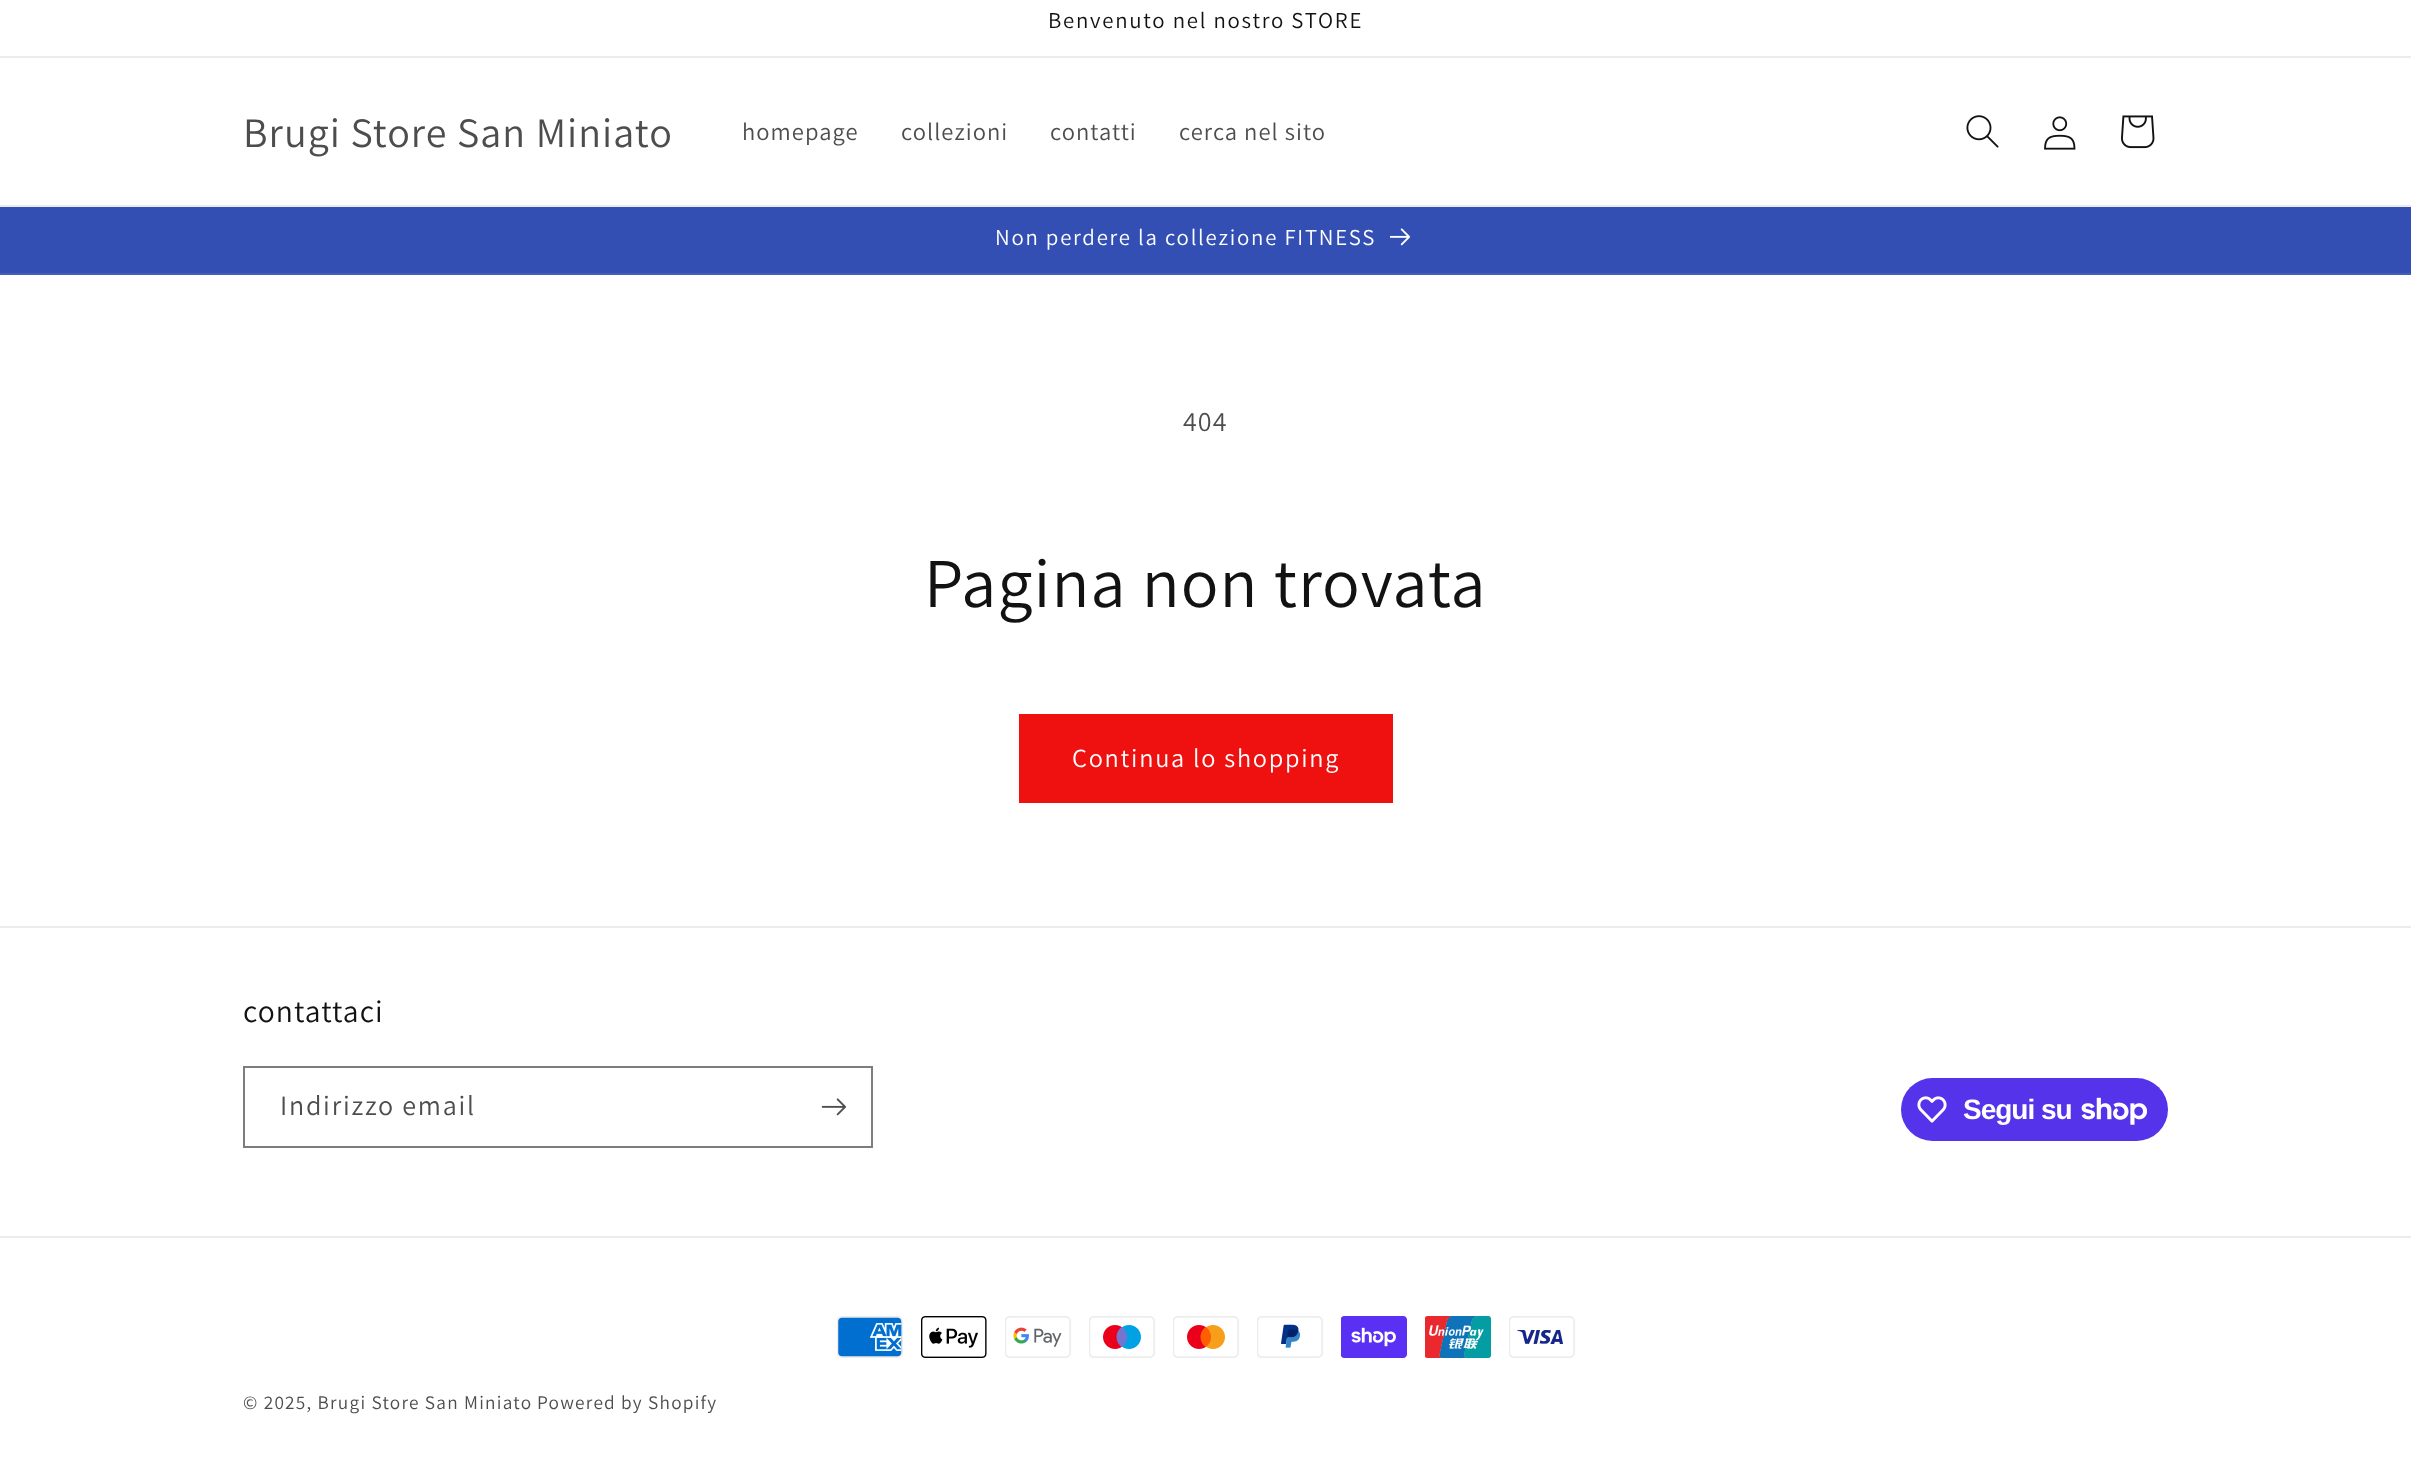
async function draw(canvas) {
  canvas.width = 2411;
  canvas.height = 1458;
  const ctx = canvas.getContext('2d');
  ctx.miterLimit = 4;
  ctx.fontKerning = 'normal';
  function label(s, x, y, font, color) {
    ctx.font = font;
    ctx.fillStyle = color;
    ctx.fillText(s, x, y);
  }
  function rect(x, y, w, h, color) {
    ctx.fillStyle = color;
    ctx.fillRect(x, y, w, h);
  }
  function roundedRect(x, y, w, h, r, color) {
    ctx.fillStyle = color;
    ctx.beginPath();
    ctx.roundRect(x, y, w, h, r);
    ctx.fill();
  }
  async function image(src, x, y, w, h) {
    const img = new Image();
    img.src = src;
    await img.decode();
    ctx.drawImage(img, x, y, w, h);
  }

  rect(0, 0, 2411, 1458, '#fff');
  rect(0, 56, 2411, 2, '#ececec');
  ctx.letterSpacing = '1.75px';
  label('Benvenuto nel nostro STORE', 1048, 28, '22.75px Assistant', '#121212');
  rect(0, 205, 2411, 2, '#ececec');
  ctx.letterSpacing = '1.05px';
  label('Brugi Store San Miniato', 243, 147, '42px Assistant', '#4d4d4d');
  label('homepage', 742, 140, '24.5px Assistant', '#4d4d4d');
  label('collezioni', 901, 140, '24.5px Assistant', '#4d4d4d');
  label('contatti', 1050, 140, '24.5px Assistant', '#4d4d4d');
  label('cerca nel sito', 1179, 140, '24.5px Assistant', '#4d4d4d');
  await image('assets/img1.png', 1966, 115, 33, 33);
  await image('assets/img2.png', 2044, 116, 32, 34);
  await image('assets/img3.png', 2121, 115, 34, 34);
  rect(0, 207, 2411, 66, '#334fb4');
  rect(0, 273, 2411, 2, '#435dba');
  ctx.letterSpacing = '1.75px';
  label('Non perdere la collezione FITNESS', 995, 245, '22.75px Assistant', '#fff');
  await image('assets/img4.png', 1390, 228, 21, 18);
  ctx.letterSpacing = '1.05px';
  label('404', 1183, 431, '28px Assistant', '#4d4d4d');
  label('Pagina non trovata', 924, 607, '70px Assistant', '#121212');
  rect(1019, 714, 374, 89, '#ef1010');
  ctx.letterSpacing = '1.75px';
  label('Continua lo shopping', 1072, 767, '26.25px Assistant', '#fff');
  rect(0, 926, 2411, 2, '#ececec');
  ctx.letterSpacing = '1.05px';
  label('contattaci', 243, 1022, '31.5px Assistant', '#121212');
  ctx.strokeStyle = '#7d7d7d';
  ctx.lineWidth = 2;
  ctx.strokeRect(244, 1067, 628, 80);
  ctx.letterSpacing = '1.75px';
  label('Indirizzo email', 280, 1115, '28px Assistant', '#4d4d4d');
  await image('assets/img5.png', 821, 1098, 25, 18);
  roundedRect(1901, 1078, 267, 63, 31.5, '#5433eb');
  await image('assets/img6.png', 1917, 1096, 30, 27);
  ctx.letterSpacing = '-1px';
  label('Segui su', 1963, 1119, 'bold 28px Liberation Sans', '#fff');
  await image('assets/img7.png', 2081, 1097, 66, 28);
  rect(0, 1236, 2411, 2, '#ececec');
  await image('assets/img8.png', 837, 1316, 66, 42);
  await image('assets/img9.png', 921, 1316, 66, 42);
  await image('assets/img10.png', 1005, 1316, 66, 42);
  await image('assets/img11.png', 1089, 1316, 66, 42);
  await image('assets/img12.png', 1173, 1316, 66, 42);
  await image('assets/img13.png', 1257, 1316, 66, 42);
  await image('assets/img14.png', 1341, 1316, 66, 42);
  await image('assets/img15.png', 1425, 1316, 66, 42);
  await image('assets/img16.png', 1509, 1316, 66, 42);
  ctx.letterSpacing = '1.25px';
  label('© 2025, Brugi Store San Miniato', 243, 1409, '19.25px Assistant', '#4d4d4d');
  label('Powered by Shopify', 537, 1409, '19.25px Assistant', '#4d4d4d');
}

draw(document.querySelector('canvas'));
